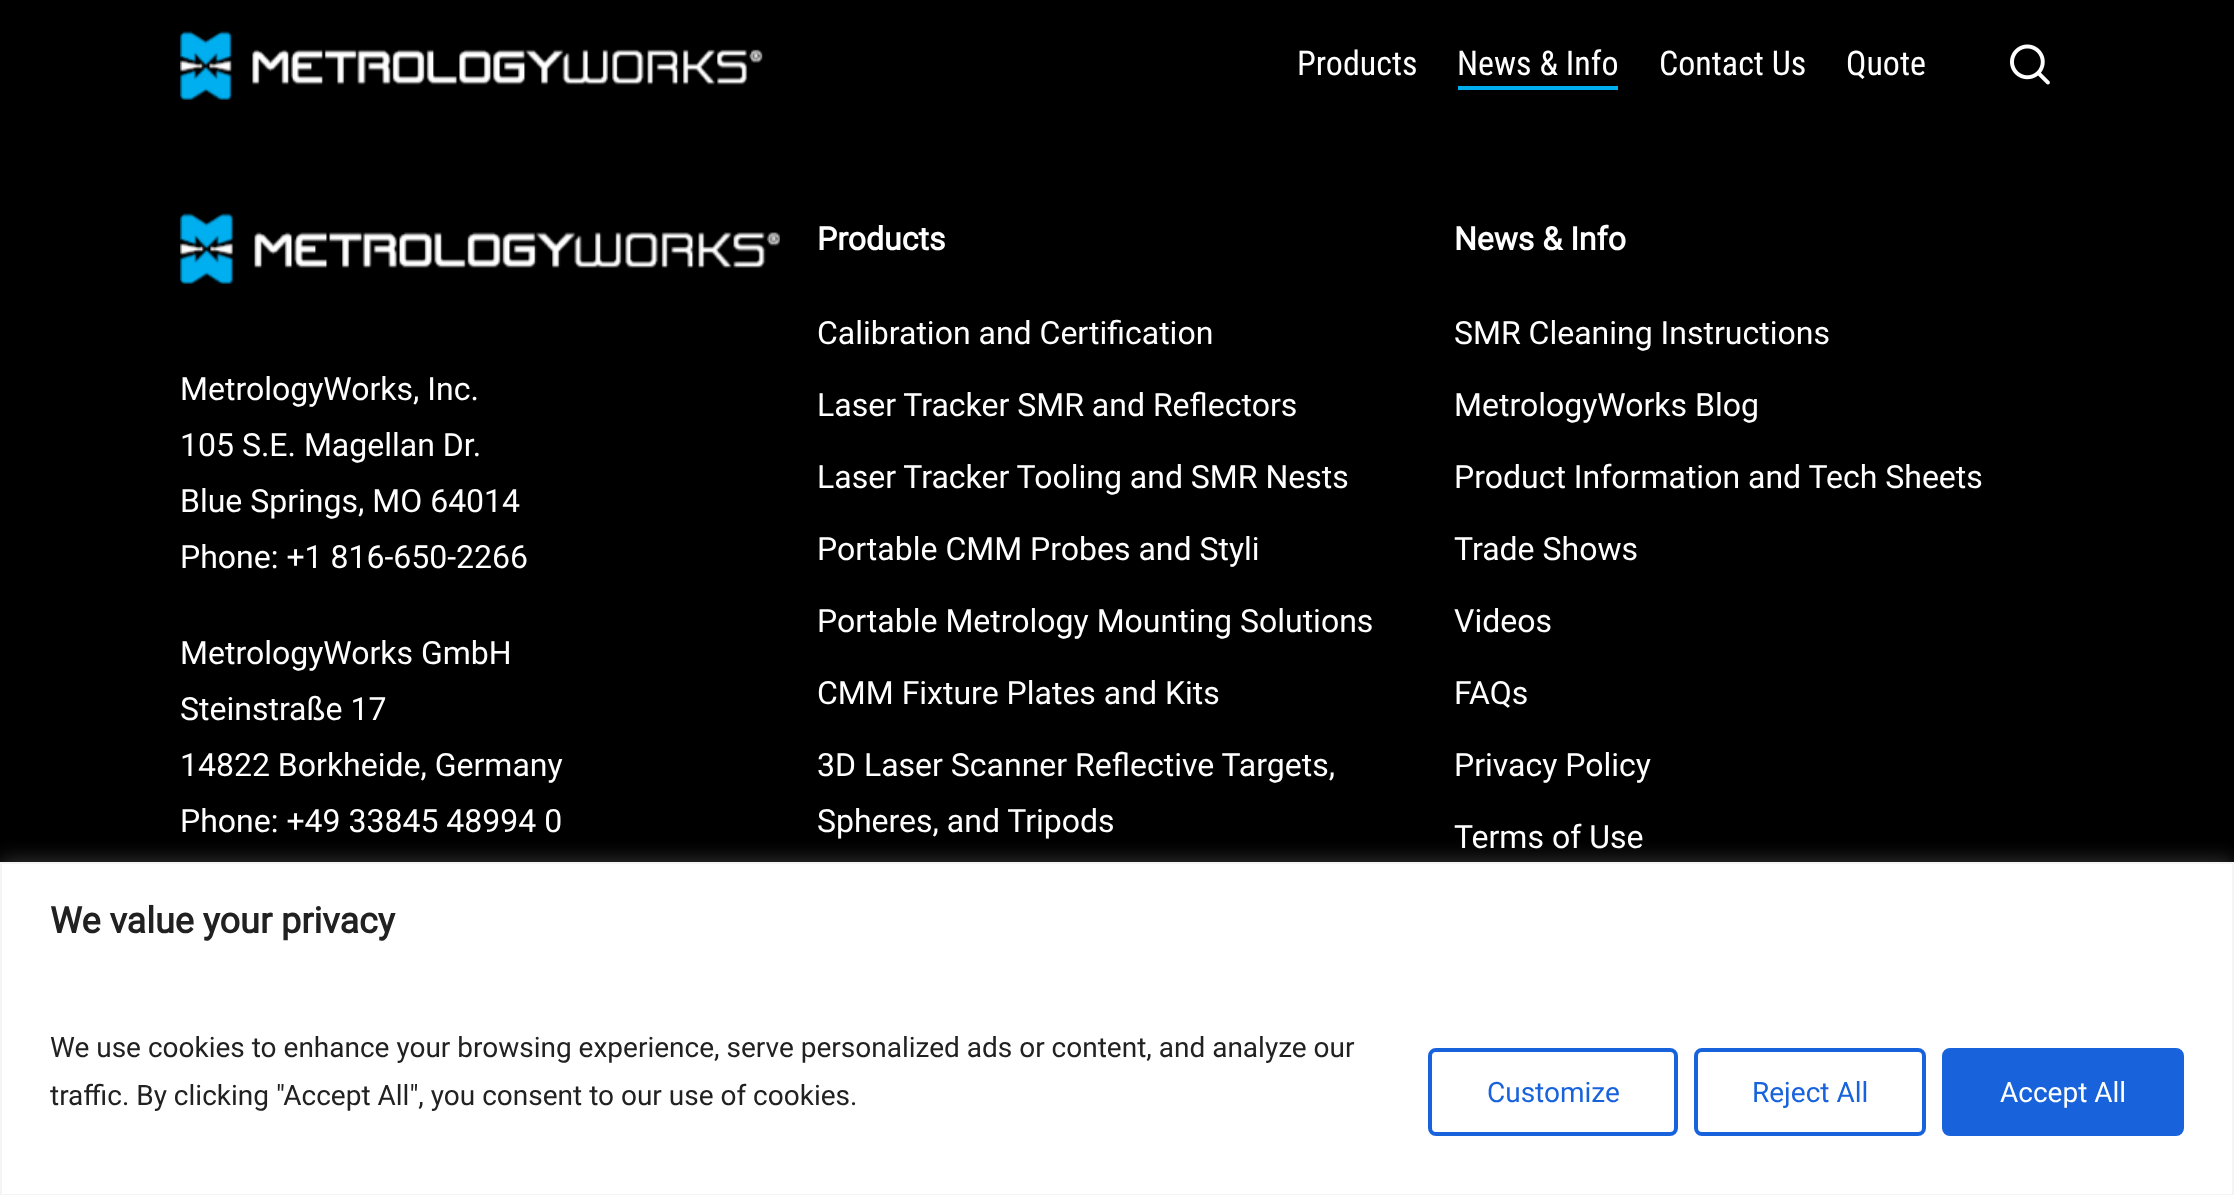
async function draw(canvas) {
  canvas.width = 2234;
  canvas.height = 1195;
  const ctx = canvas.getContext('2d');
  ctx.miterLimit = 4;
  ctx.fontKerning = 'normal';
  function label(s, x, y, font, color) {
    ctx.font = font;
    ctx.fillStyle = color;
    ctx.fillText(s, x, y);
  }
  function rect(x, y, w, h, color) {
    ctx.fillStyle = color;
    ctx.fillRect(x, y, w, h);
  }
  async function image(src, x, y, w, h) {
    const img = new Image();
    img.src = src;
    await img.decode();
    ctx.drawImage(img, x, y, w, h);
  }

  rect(0, 0, 2234, 1195, '#000');
  await image('assets/img1.png', 180, 31, 583, 69);
  label('Products', 1297, 75, '34px Roboto Condensed', '#fff');
  label('News & Info', 1457, 75, '34px Roboto Condensed', '#fff');
  rect(1458, 86, 160, 4, '#00aeef');
  label('Contact Us', 1659, 75, '34px Roboto Condensed', '#fff');
  label('Quote', 1846, 75, '34px Roboto Condensed', '#fff');
  await image('assets/img2.png', 2010, 44, 40, 41);
  await image('assets/img3.png', 180, 213, 600, 71);
  label('MetrologyWorks, Inc.', 180, 400, '32px Roboto', '#fff');
  label('105 S.E. Magellan Dr.', 180, 456, '32px Roboto', '#fff');
  label('Blue Springs, MO 64014', 180, 512, '32px Roboto', '#fff');
  label('Phone: +1 816-650-2266', 180, 568, '32px Roboto', '#fff');
  label('MetrologyWorks GmbH', 180, 664, '32px Roboto', '#fff');
  label('Steinstraße 17', 180, 720, '32px Roboto', '#fff');
  label('14822 Borkheide, Germany', 180, 776, '32px Roboto', '#fff');
  label('Phone: +49 33845 48994 0', 180, 832, '32px Roboto', '#fff');
  label('Products', 817, 250, 'bold 32px Roboto', '#fff');
  label('Calibration and Certification', 817, 344, '32px Roboto', '#fff');
  label('Laser Tracker SMR and Reflectors', 817, 416, '32px Roboto', '#fff');
  label('Laser Tracker Tooling and SMR Nests', 817, 488, '32px Roboto', '#fff');
  label('Portable CMM Probes and Styli', 817, 560, '32px Roboto', '#fff');
  label('Portable Metrology Mounting Solutions', 817, 632, '32px Roboto', '#fff');
  label('CMM Fixture Plates and Kits', 817, 704, '32px Roboto', '#fff');
  label('3D Laser Scanner Reflective Targets,', 817, 776, '32px Roboto', '#fff');
  label('Spheres, and Tripods', 817, 832, '32px Roboto', '#fff');
  label('News & Info', 1454, 250, 'bold 32px Roboto', '#fff');
  label('SMR Cleaning Instructions', 1454, 344, '32px Roboto', '#fff');
  label('MetrologyWorks Blog', 1454, 416, '32px Roboto', '#fff');
  label('Product Information and Tech Sheets', 1454, 488, '32px Roboto', '#fff');
  label('Trade Shows', 1454, 560, '32px Roboto', '#fff');
  label('Videos', 1454, 632, '32px Roboto', '#fff');
  label('FAQs', 1454, 704, '32px Roboto', '#fff');
  label('Privacy Policy', 1454, 776, '32px Roboto', '#fff');
  label('Terms of Use', 1454, 848, '32px Roboto', '#fff');
  ctx.fillStyle = '#acabab4d';
  ctx.filter = 'blur(10px)';
  ctx.beginPath();
  ctx.rect(0, 860, 2234, 334);
  ctx.fill();
  ctx.filter = 'none';
  ctx.fillStyle = '#fff';
  ctx.beginPath();
  ctx.rect(1, 863, 2232, 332);
  ctx.fill();
  ctx.strokeStyle = '#f4f4f4';
  ctx.lineWidth = 2;
  ctx.stroke();
  label('We value your privacy', 50, 933, 'bold 36px Roboto', '#212121');
  label('We use cookies to enhance your browsing experience, serve personalized ads or content, and analyze our', 50, 1057, '28px Roboto', '#212121');
  label('traffic. By clicking "Accept All", you consent to our use of cookies.', 50, 1105, '28px Roboto', '#212121');
  ctx.beginPath();
  ctx.roundRect(1430, 1050, 246, 84, 6);
  ctx.strokeStyle = '#1863dc';
  ctx.lineWidth = 4;
  ctx.stroke();
  label('Customize', 1487, 1102, '28px Roboto', '#1863dc');
  ctx.beginPath();
  ctx.roundRect(1696, 1050, 228, 84, 6);
  ctx.stroke();
  label('Reject All', 1752, 1102, '28px Roboto', '#1863dc');
  ctx.beginPath();
  ctx.roundRect(1944, 1050, 238, 84, 6);
  ctx.fill();
  ctx.stroke();
  label('Accept All', 2000, 1102, '28px Roboto', '#fff');
}

draw(document.querySelector('canvas'));
